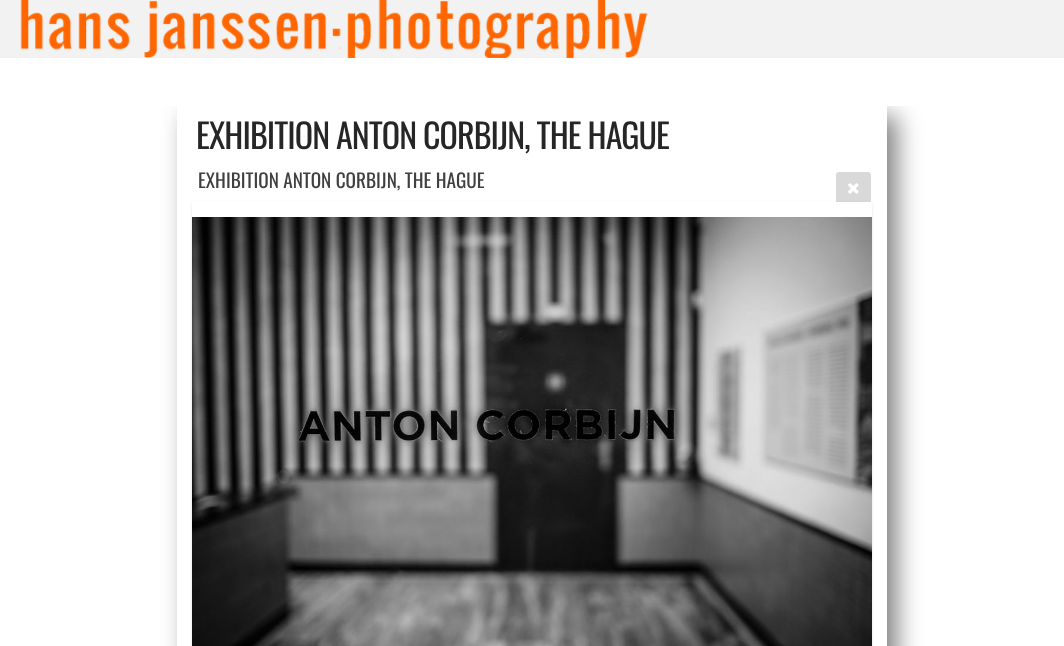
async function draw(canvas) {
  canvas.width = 1064;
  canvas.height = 646;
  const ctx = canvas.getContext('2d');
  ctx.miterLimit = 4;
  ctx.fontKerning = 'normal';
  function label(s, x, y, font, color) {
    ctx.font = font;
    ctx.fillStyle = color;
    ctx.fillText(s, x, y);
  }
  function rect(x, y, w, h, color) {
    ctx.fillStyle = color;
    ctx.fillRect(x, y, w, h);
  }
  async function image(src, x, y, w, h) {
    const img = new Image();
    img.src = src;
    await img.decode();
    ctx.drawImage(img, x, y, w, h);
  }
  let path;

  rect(0, 0, 1064, 646, '#fff');
  rect(0, 0, 1064, 58, '#f2f2f2');
  await image('assets/img1.png', 20, 0, 628, 58);
  ctx.save();
  ctx.beginPath();
  ctx.rect(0, 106, 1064, 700);
  ctx.clip();
  path = new Path2D('M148 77H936V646H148ZM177 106H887V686H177Z');
  ctx.clip(path, 'evenodd');
  ctx.fillStyle = '#808080';
  ctx.filter = 'blur(12.5px)';
  ctx.beginPath();
  ctx.rect(187, 116, 710, 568);
  ctx.fill();
  ctx.filter = 'none';
  ctx.restore();
  ctx.letterSpacing = '-0.95px';
  label('EXHIBITION ANTON CORBIJN, THE HAGUE', 196, 149, '34px Oswald', '#262626');
  ctx.letterSpacing = '0px';
  label('EXHIBITION ANTON CORBIJN, THE HAGUE', 198, 188, '19.25px Oswald', '#404040');
  ctx.fillStyle = '#d9d9d9';
  ctx.beginPath();
  ctx.roundRect(836, 172, 35, 31, [3, 3, 0, 0]);
  ctx.fill();
  await image('assets/img2.png', 848, 183, 11, 11);
  ctx.fillStyle = '#0000001a';
  ctx.filter = 'blur(1.5px)';
  ctx.beginPath();
  ctx.rect(192, 203, 680, 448);
  ctx.fill();
  ctx.filter = 'none';
  rect(192, 202, 680, 15, '#fff');
  await image('assets/img3.png', 192, 217, 680, 429);
}

draw(document.querySelector('canvas'));
